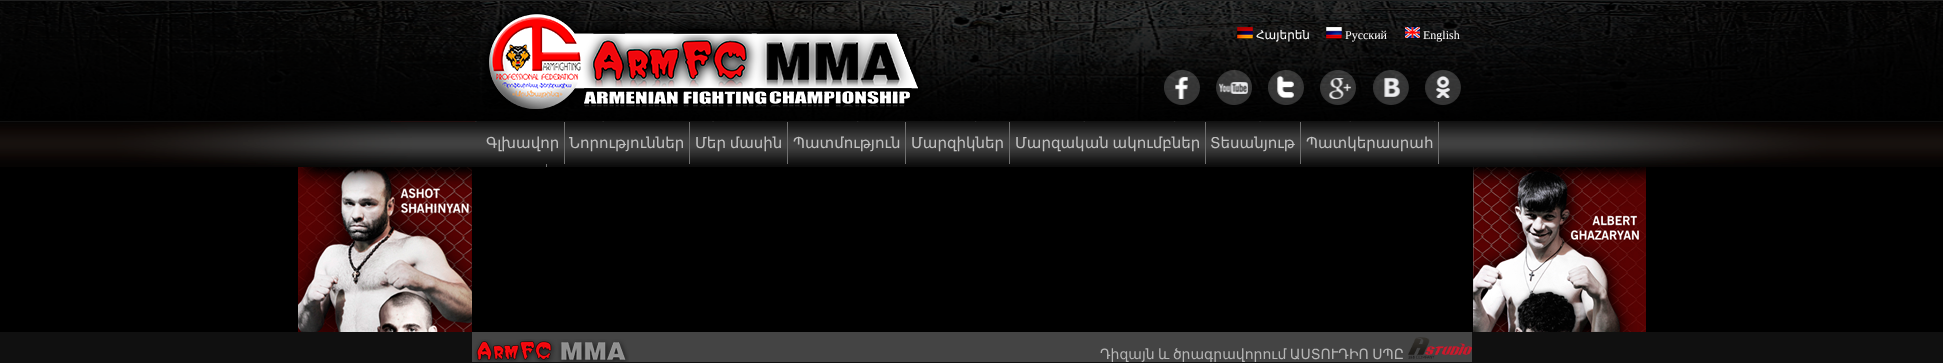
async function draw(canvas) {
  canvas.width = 1943;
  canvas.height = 363;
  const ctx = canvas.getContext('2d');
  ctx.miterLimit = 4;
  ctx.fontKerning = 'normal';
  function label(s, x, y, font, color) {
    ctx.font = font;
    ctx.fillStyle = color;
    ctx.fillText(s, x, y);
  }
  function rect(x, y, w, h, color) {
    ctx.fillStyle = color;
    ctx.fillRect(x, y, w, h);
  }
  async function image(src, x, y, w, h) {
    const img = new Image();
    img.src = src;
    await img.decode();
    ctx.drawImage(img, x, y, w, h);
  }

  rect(0, 0, 1943, 363, '#000');
  await image('assets/img1.png', 0, 0, 1943, 122);
  await image('assets/img2.png', 482, 5, 438, 104);
  await image('assets/img3.png', 1237, 27, 16, 12);
  label('Հայերեն', 1256, 39, '12px DejaVu Sans', '#fff');
  await image('assets/img4.png', 1326, 27, 16, 12);
  label('Русский', 1345, 39, '12px Liberation Serif', '#fff');
  await image('assets/img5.png', 1404, 27, 16, 12);
  label('English', 1423, 39, '12px Liberation Serif', '#fff');
  await image('assets/img6.png', 1164, 70, 36, 35);
  await image('assets/img7.png', 1216, 70, 36, 35);
  await image('assets/img8.png', 1268, 70, 36, 35);
  await image('assets/img9.png', 1320, 70, 36, 35);
  await image('assets/img10.png', 1373, 70, 36, 35);
  await image('assets/img11.png', 1425, 70, 36, 35);
  await image('assets/img12.png', 0, 122, 1943, 45);
  rect(564, 122, 1, 42, '#6f6f6f');
  label('Գլխավոր', 486, 148, '15px DejaVu Sans', '#c0c0c0');
  rect(689, 122, 1, 42, '#6f6f6f');
  label('Նորություններ', 569, 148, '15px DejaVu Sans', '#c0c0c0');
  rect(787, 122, 1, 42, '#6f6f6f');
  ctx.wordSpacing = '-1px';
  label('Մեր մասին', 695, 148, '15px DejaVu Sans', '#c0c0c0');
  rect(905, 122, 1, 42, '#6f6f6f');
  ctx.wordSpacing = '0px';
  label('Պատմություն', 793, 148, '15px DejaVu Sans', '#c0c0c0');
  rect(1009, 122, 1, 42, '#6f6f6f');
  label('Մարզիկներ', 911, 148, '15px DejaVu Sans', '#c0c0c0');
  rect(1205, 122, 1, 42, '#6f6f6f');
  ctx.wordSpacing = '-1px';
  label('Մարզական ակումբներ', 1015, 148, '15px DejaVu Sans', '#c0c0c0');
  rect(1300, 122, 1, 42, '#6f6f6f');
  ctx.wordSpacing = '0px';
  label('Տեսանյութ', 1210, 148, '15px DejaVu Sans', '#c0c0c0');
  rect(1438, 122, 1, 42, '#6f6f6f');
  label('Պատկերասրահ', 1306, 148, '15px DejaVu Sans', '#c0c0c0');
  rect(546, 164, 1, 3, '#6f6f6f');
  await image('assets/img13.png', 298, 167, 1348, 165);
  rect(472, 167, 1, 165, '#000');
  rect(0, 332, 1943, 31, '#101010');
  rect(472, 332, 1000, 30, '#444');
  await image('assets/img14.png', 474, 339, 155, 23);
  ctx.wordSpacing = '-1px';
  label('Դիզայն և ծրագրավորում ԱՍՏՈՒԴԻՈ ՍՊԸ', 1100, 359, '14px DejaVu Sans', '#b6b6b6');
  await image('assets/img15.png', 1408, 337, 64, 22);
}

draw(document.querySelector('canvas'));
